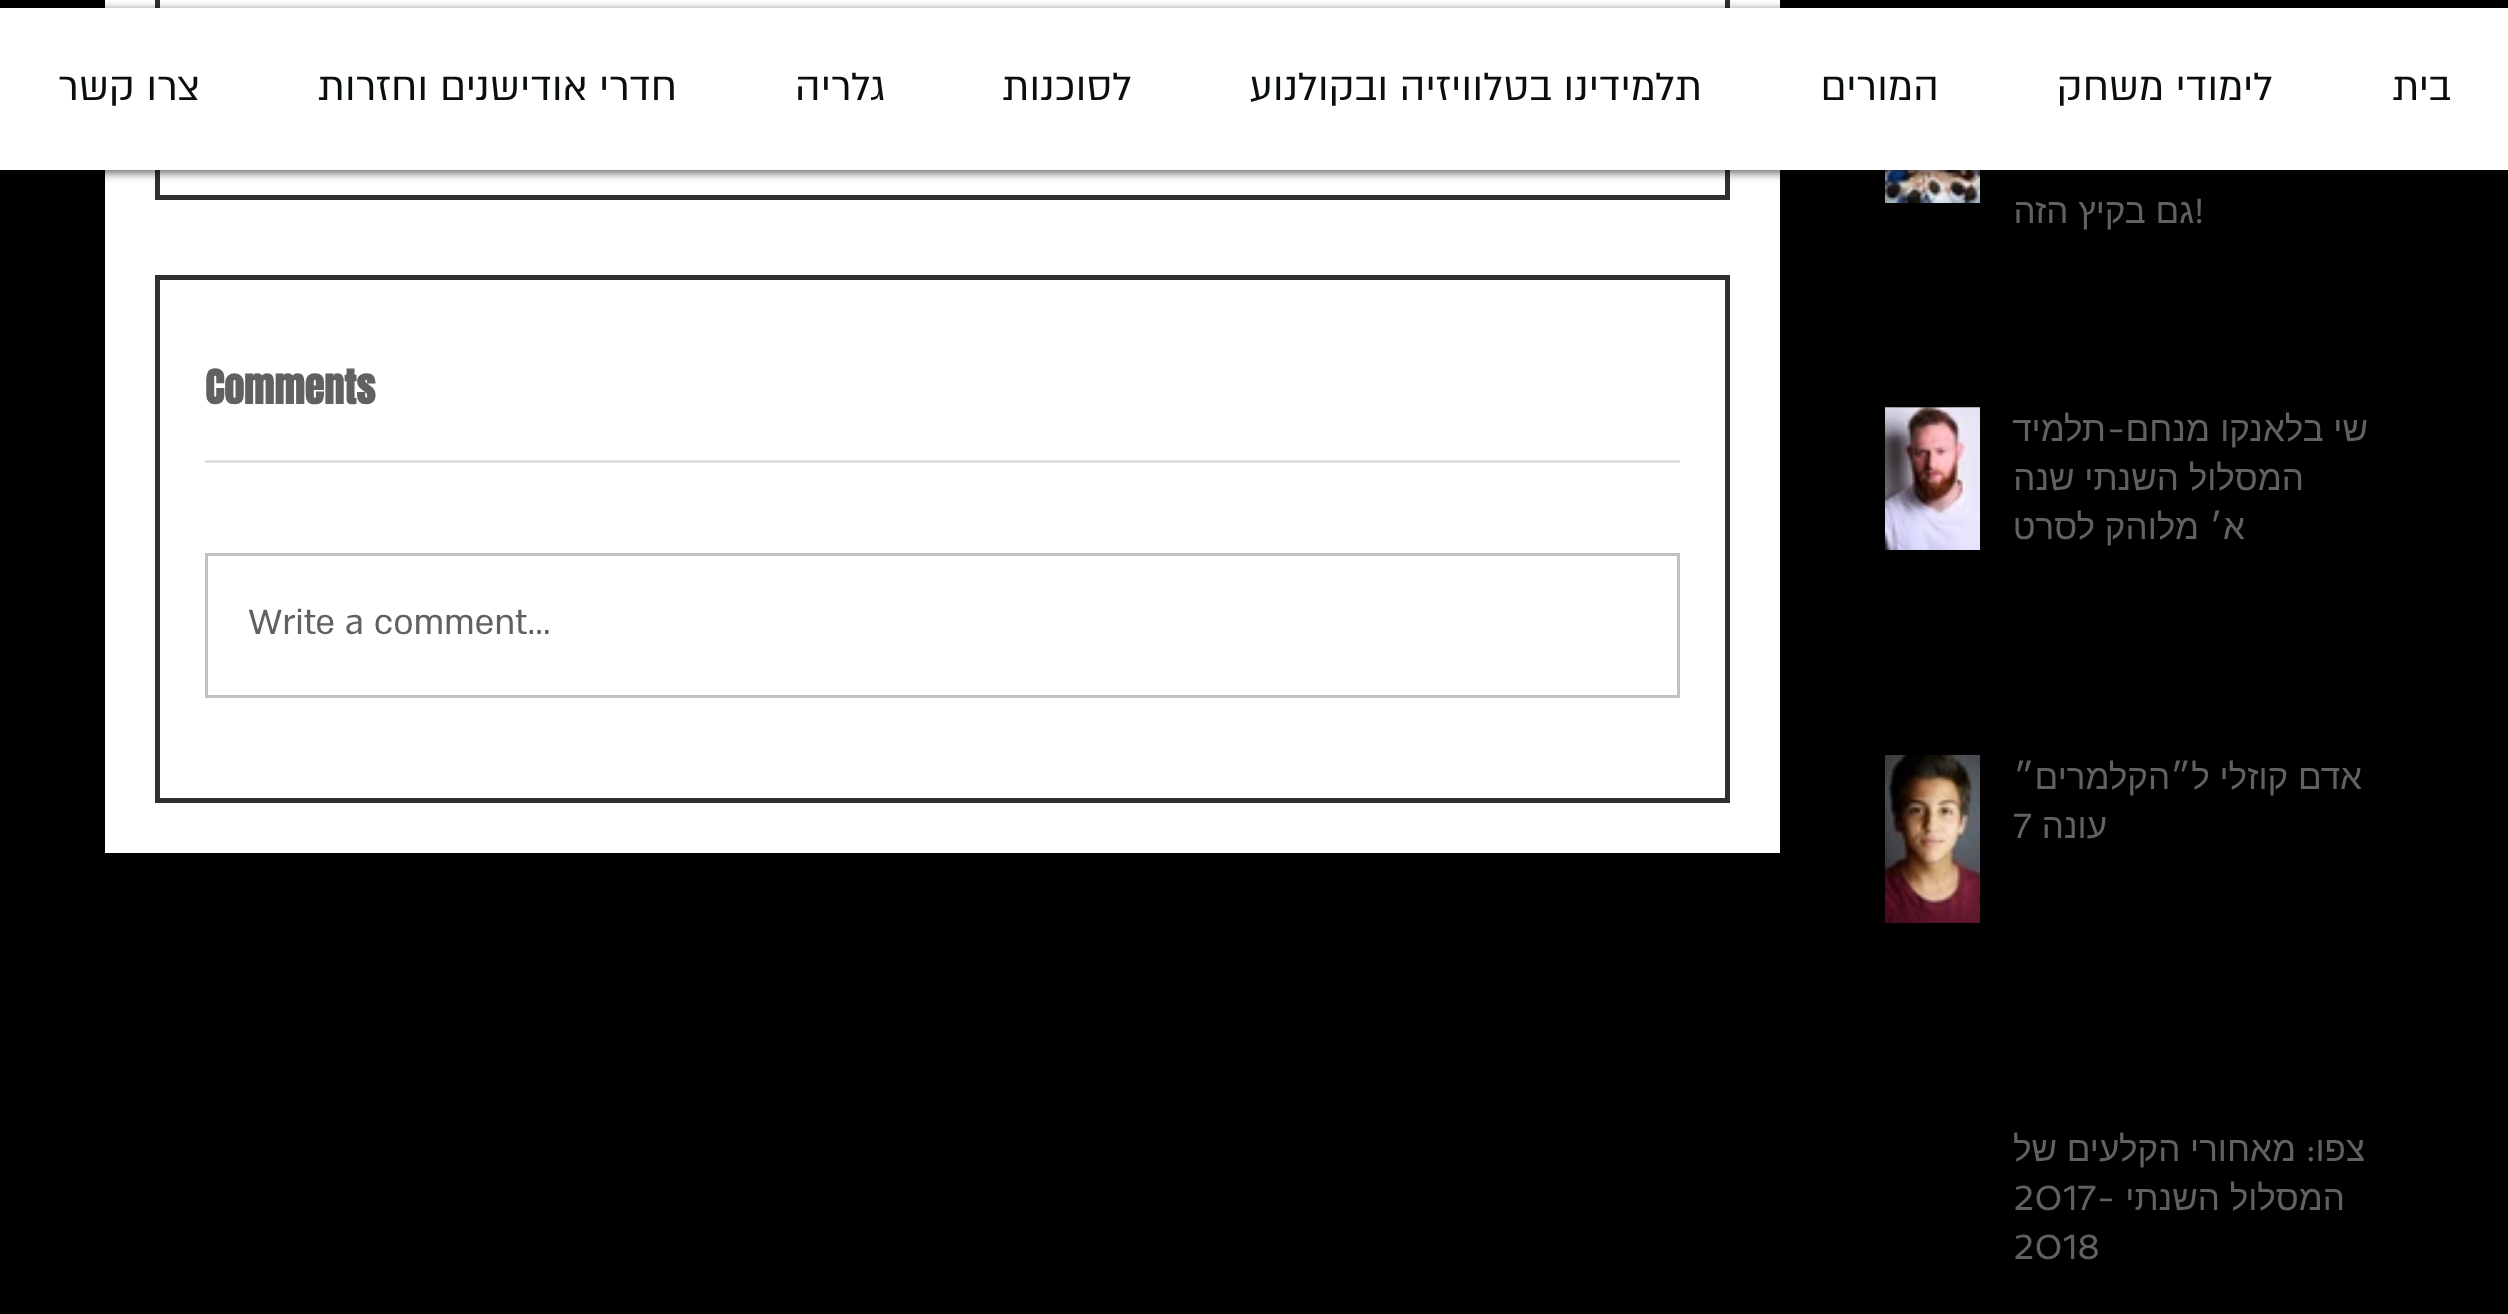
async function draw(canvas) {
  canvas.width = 2508;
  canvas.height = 1314;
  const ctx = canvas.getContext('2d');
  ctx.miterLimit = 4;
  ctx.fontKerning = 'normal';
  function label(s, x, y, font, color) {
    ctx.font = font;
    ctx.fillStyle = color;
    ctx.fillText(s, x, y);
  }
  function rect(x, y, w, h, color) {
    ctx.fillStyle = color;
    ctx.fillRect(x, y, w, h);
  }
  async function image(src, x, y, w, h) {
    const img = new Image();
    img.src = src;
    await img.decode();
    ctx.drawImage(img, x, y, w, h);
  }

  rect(0, 0, 2508, 1314, '#000');
  await image('assets/img1.png', 1885, 170, 95, 33);
  rect(105, 0, 1675, 853, '#fff');
  ctx.strokeStyle = '#303030';
  ctx.lineWidth = 5;
  ctx.strokeRect(157.5, -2.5, 1570, 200);
  ctx.fillStyle = '#00000099';
  ctx.filter = 'blur(5px)';
  ctx.beginPath();
  ctx.rect(0, 10, 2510, 163);
  ctx.fill();
  ctx.filter = 'none';
  rect(0, 8, 2508, 162, '#fff');
  ctx.direction = 'rtl';
  label('בית', 2451, 100, '45px "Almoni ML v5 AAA"', '#090f0a');
  label('לימודי משחק', 2273, 100, '45px "Almoni ML v5 AAA"', '#090f0a');
  label('המורים', 1939, 100, '45px "Almoni ML v5 AAA"', '#090f0a');
  label('תלמידינו בטלוויזיה ובקולנוע', 1702, 100, '45px "Almoni ML v5 AAA"', '#090f0a');
  label('לסוכנות', 1132, 100, '45px "Almoni ML v5 AAA"', '#090f0a');
  label('גלריה', 885, 100, '45px "Almoni ML v5 AAA"', '#090f0a');
  label('חדרי אודישנים וחזרות', 677, 100, '45px "Almoni ML v5 AAA"', '#090f0a');
  label('צרו קשר', 200, 100, '45px "Almoni ML v5 AAA"', '#090f0a');
  ctx.direction = 'ltr';
  label('!', 2194, 223, '35px Spinnaker', '#616161');
  ctx.direction = 'rtl';
  label('גם בקיץ הזה', 2194, 223, '35px Liberation Sans', '#616161');
  label('שי בלאנקו', 2368, 441, '35px Liberation Sans', '#616161');
  label('מנחם', 2210, 441, '35px Liberation Sans', '#616161');
  label('-', 2126, 441, '35px Spinnaker', '#616161');
  label('תלמיד', 2106, 441, '35px Liberation Sans', '#616161');
  label('המסלול השנתי שנה', 2304, 490, '35px Liberation Sans', '#616161');
  label('א׳', 2245, 539, '35px Liberation Sans', '#616161');
  label('מלוהק לסרט', 2199, 539, '35px Liberation Sans', '#616161');
  await image('assets/img2.png', 1885, 407, 95, 1);
  await image('assets/img3.png', 1885, 407, 95, 143);
  label('אדם קוזלי ל״הקלמרים״', 2362, 789, '35px Liberation Sans', '#616161');
  label('עונה', 2107, 838, '35px Liberation Sans', '#616161');
  ctx.direction = 'ltr';
  label('7', 2013, 838, '35px Spinnaker', '#616161');
  await image('assets/img4.png', 1885, 755, 95, 168);
  ctx.direction = 'rtl';
  label('צפו', 2365, 1161, '35px Liberation Sans', '#616161');
  label(':', 2315, 1161, '35px Spinnaker', '#616161');
  label('מאחורי הקלעים של', 2296, 1161, '35px Liberation Sans', '#616161');
  label('המסלול השנתי', 2345, 1210, '35px Liberation Sans', '#616161');
  ctx.direction = 'ltr';
  label('2017-', 2013, 1210, '35px Spinnaker', '#616161');
  label('2018', 2013, 1259, '35px Spinnaker', '#616161');
  ctx.strokeRect(157.5, 277.5, 1570, 523);
  label('Comments', 205, 404, 'bold 40px Anton', '#616161');
  rect(205, 460, 1475, 3, '#dfdfdf');
  ctx.strokeStyle = '#c1c1c1';
  ctx.lineWidth = 3;
  ctx.strokeRect(206.5, 554.5, 1472, 142);
  label('Write a comment...', 248, 634, '40px "Almoni ML v5 AAA"', '#616161');
}

draw(document.querySelector('canvas'));
